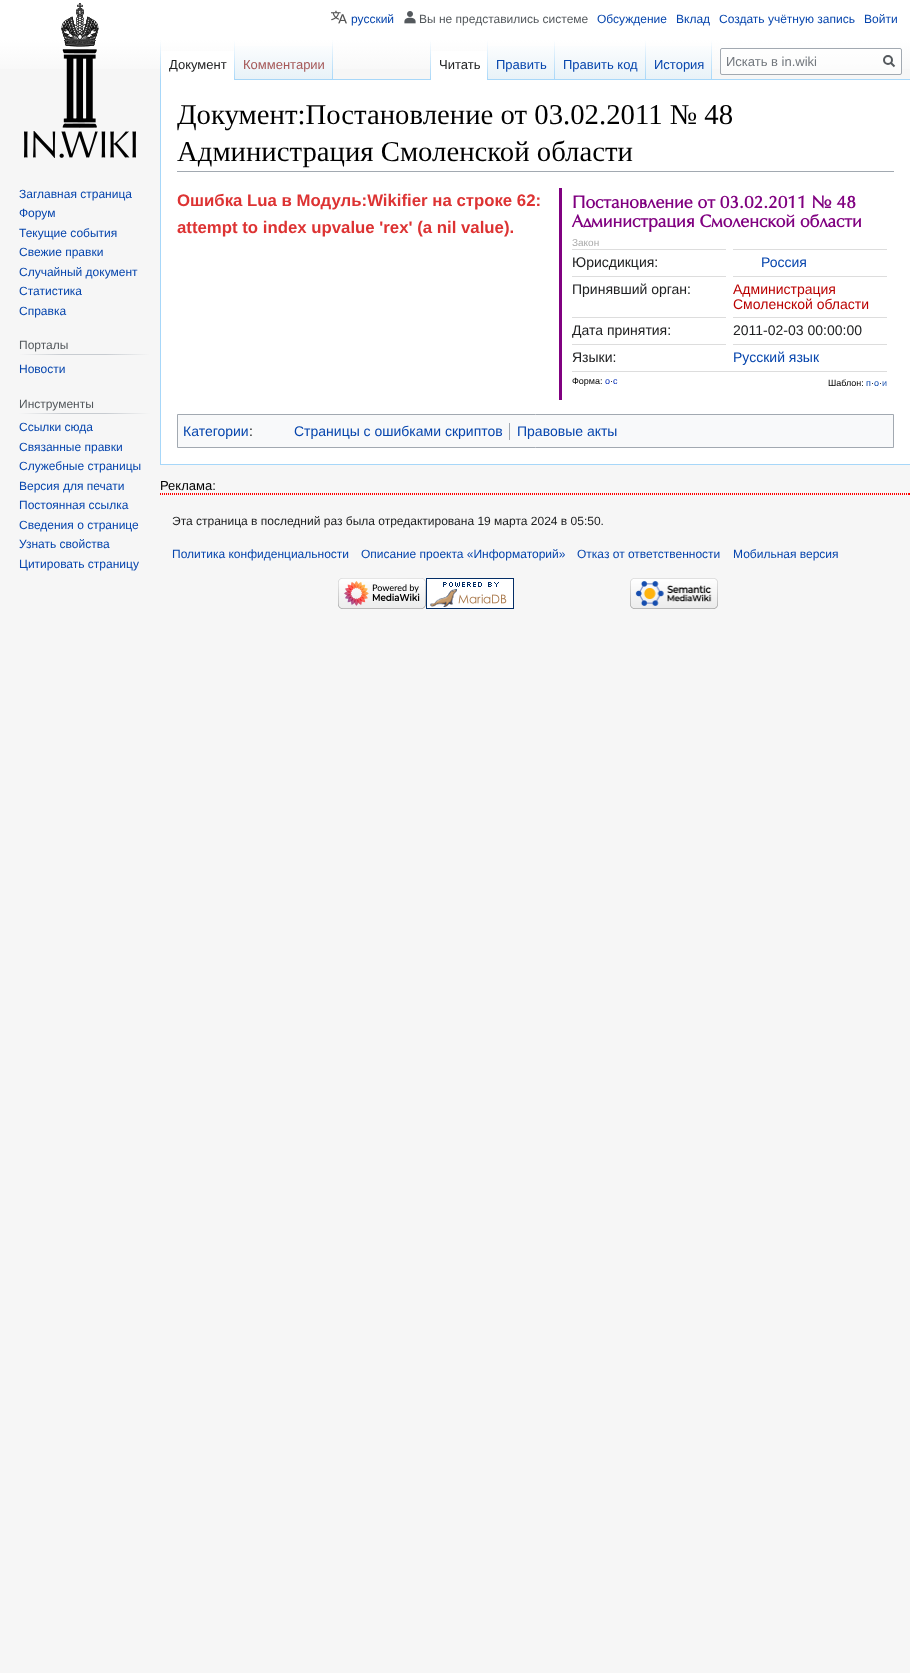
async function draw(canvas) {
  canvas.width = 910;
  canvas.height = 1673;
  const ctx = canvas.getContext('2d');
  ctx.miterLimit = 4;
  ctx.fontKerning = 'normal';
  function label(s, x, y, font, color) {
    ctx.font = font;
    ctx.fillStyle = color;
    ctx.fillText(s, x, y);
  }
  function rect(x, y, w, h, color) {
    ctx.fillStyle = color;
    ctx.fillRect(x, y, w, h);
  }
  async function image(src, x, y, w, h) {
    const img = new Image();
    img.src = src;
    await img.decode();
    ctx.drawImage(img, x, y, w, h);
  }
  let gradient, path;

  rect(0, 0, 910, 1673, '#f6f6f6');
  gradient = ctx.createLinearGradient(455, 0, 455, 80);
  gradient.addColorStop(0.5, '#fff');
  gradient.addColorStop(1, '#f6f6f6');
  ctx.fillStyle = gradient;
  ctx.fillRect(0, 0, 910, 69);
  await image('assets/img1.png', 331, 10, 16, 14);
  label('русский', 351, 23, '12px Liberation Sans', '#0645ad');
  await image('assets/img2.png', 404, 11, 12, 13);
  label('Вы не представились системе', 419, 23, '12px Liberation Sans', '#54595d');
  label('Обсуждение', 597, 23, '12px Liberation Sans', '#0645ad');
  label('Вклад', 676, 23, '12px Liberation Sans', '#0645ad');
  label('Создать учётную запись', 719, 23, '12px Liberation Sans', '#0645ad');
  label('Войти', 864, 23, '12px Liberation Sans', '#0645ad');
  rect(160, 464, 750, 1, '#a7d7f9');
  rect(160, 79, 1, 386, '#a7d7f9');
  gradient = ctx.createLinearGradient(161, 40, 161, 80);
  gradient.addColorStop(0, '#a7d7f900');
  gradient.addColorStop(1, '#a7d7f9');
  ctx.fillStyle = gradient;
  ctx.fillRect(160, 40, 1, 40);
  rect(161, 51, 73, 29, '#fff');
  gradient = ctx.createLinearGradient(235, 40, 235, 80);
  gradient.addColorStop(0, '#fff');
  gradient.addColorStop(1, '#a7d7f9');
  ctx.fillStyle = gradient;
  ctx.fillRect(234, 40, 1, 40);
  label('Документ', 169, 69, '13px Liberation Sans', '#202122');
  gradient = ctx.createLinearGradient(284, 80, 284, 40);
  gradient.addColorStop(0, '#77c1f6');
  gradient.addColorStop(0.03, '#e8f2f8');
  gradient.addColorStop(1, '#fff');
  ctx.fillStyle = gradient;
  ctx.fillRect(235, 46, 98, 34);
  gradient = ctx.createLinearGradient(333, 40, 333, 80);
  gradient.addColorStop(0, '#a7d7f900');
  gradient.addColorStop(1, '#a7d7f9');
  ctx.fillStyle = gradient;
  ctx.fillRect(332, 40, 1, 40);
  label('Комментарии', 243, 69, '13px Liberation Sans', '#a55858');
  rect(333, 79, 577, 1, '#a7d7f9');
  gradient = ctx.createLinearGradient(431, 40, 431, 80);
  gradient.addColorStop(0, '#a7d7f900');
  gradient.addColorStop(1, '#a7d7f9');
  ctx.fillStyle = gradient;
  ctx.fillRect(430, 40, 1, 40);
  rect(431, 51, 56, 29, '#fff');
  gradient = ctx.createLinearGradient(488, 40, 488, 80);
  gradient.addColorStop(0, '#fff');
  gradient.addColorStop(1, '#a7d7f9');
  ctx.fillStyle = gradient;
  ctx.fillRect(487, 40, 1, 40);
  label('Читать', 439, 69, '13px Liberation Sans', '#202122');
  gradient = ctx.createLinearGradient(522, 80, 522, 40);
  gradient.addColorStop(0, '#77c1f6');
  gradient.addColorStop(0.03, '#e8f2f8');
  gradient.addColorStop(1, '#fff');
  ctx.fillStyle = gradient;
  ctx.fillRect(488, 46, 67, 33);
  gradient = ctx.createLinearGradient(555, 40, 555, 80);
  gradient.addColorStop(0, '#a7d7f900');
  gradient.addColorStop(1, '#a7d7f9');
  ctx.fillStyle = gradient;
  ctx.fillRect(554, 40, 1, 40);
  label('Править', 496, 69, '13px Liberation Sans', '#0645ad');
  gradient = ctx.createLinearGradient(601, 80, 601, 40);
  gradient.addColorStop(0, '#77c1f6');
  gradient.addColorStop(0.03, '#e8f2f8');
  gradient.addColorStop(1, '#fff');
  ctx.fillStyle = gradient;
  ctx.fillRect(555, 46, 91, 33);
  gradient = ctx.createLinearGradient(646, 40, 646, 80);
  gradient.addColorStop(0, '#a7d7f900');
  gradient.addColorStop(1, '#a7d7f9');
  ctx.fillStyle = gradient;
  ctx.fillRect(645, 40, 1, 40);
  label('Править код', 563, 69, '13px Liberation Sans', '#0645ad');
  gradient = ctx.createLinearGradient(679, 80, 679, 40);
  gradient.addColorStop(0, '#77c1f6');
  gradient.addColorStop(0.03, '#e8f2f8');
  gradient.addColorStop(1, '#fff');
  ctx.fillStyle = gradient;
  ctx.fillRect(646, 46, 66, 33);
  gradient = ctx.createLinearGradient(712, 40, 712, 80);
  gradient.addColorStop(0, '#a7d7f900');
  gradient.addColorStop(1, '#a7d7f9');
  ctx.fillStyle = gradient;
  ctx.fillRect(711, 40, 1, 40);
  label('История', 654, 69, '13px Liberation Sans', '#0645ad');
  ctx.fillStyle = '#ffffff80';
  ctx.beginPath();
  ctx.roundRect(720.5, 48.5, 181, 26, 1.5);
  ctx.fill();
  ctx.strokeStyle = '#a2a9b1';
  ctx.stroke();
  label('Искать в in.wiki', 726, 66, '13px Liberation Sans', '#72777d');
  path = new Path2D('M894.5 66.5L890.5 62.5');
  ctx.strokeStyle = '#54595d';
  ctx.lineWidth = 2;
  ctx.stroke(path);
  ctx.beginPath();
  ctx.arc(888, 60, 4, 0, 2 * Math.PI);
  ctx.stroke();
  await image('assets/img3.png', 24, 3, 112, 155);
  label('Заглавная страница', 19, 198, '12px Liberation Sans', '#0645ad');
  label('Форум', 19, 217, '12px Liberation Sans', '#0645ad');
  label('Текущие события', 19, 237, '12px Liberation Sans', '#0645ad');
  label('Свежие правки', 19, 256, '12px Liberation Sans', '#0645ad');
  label('Случайный документ', 19, 276, '12px Liberation Sans', '#0645ad');
  label('Статистика', 19, 295, '12px Liberation Sans', '#0645ad');
  label('Справка', 19, 315, '12px Liberation Sans', '#0645ad');
  gradient = ctx.createLinearGradient(19, 355, 150, 355);
  gradient.addColorStop(0, '#f6f6f6');
  gradient.addColorStop(0.33, '#c8ccd1');
  gradient.addColorStop(0.66, '#c8ccd1');
  gradient.addColorStop(1, '#f6f6f6');
  ctx.fillStyle = gradient;
  ctx.fillRect(19, 354, 131, 1);
  label('Порталы', 19, 349, '12px Liberation Sans', '#54595d');
  label('Новости', 19, 373, '12px Liberation Sans', '#0645ad');
  gradient = ctx.createLinearGradient(19, 414, 150, 414);
  gradient.addColorStop(0, '#f6f6f6');
  gradient.addColorStop(0.33, '#c8ccd1');
  gradient.addColorStop(0.66, '#c8ccd1');
  gradient.addColorStop(1, '#f6f6f6');
  ctx.fillStyle = gradient;
  ctx.fillRect(19, 413, 131, 1);
  label('Инструменты', 19, 408, '12px Liberation Sans', '#54595d');
  label('Ссылки сюда', 19, 431, '12px Liberation Sans', '#0645ad');
  label('Связанные правки', 19, 451, '12px Liberation Sans', '#0645ad');
  label('Служебные страницы', 19, 470, '12px Liberation Sans', '#0645ad');
  label('Версия для печати', 19, 490, '12px Liberation Sans', '#0645ad');
  label('Постоянная ссылка', 19, 509, '12px Liberation Sans', '#0645ad');
  label('Сведения о странице', 19, 529, '12px Liberation Sans', '#0645ad');
  label('Узнать свойства', 19, 548, '12px Liberation Sans', '#0645ad');
  label('Цитировать страницу', 19, 568, '12px Liberation Sans', '#0645ad');
  rect(161, 80, 749, 384, '#fff');
  rect(177, 171, 717, 1, '#a2a9b1');
  label('Документ:Постановление от 03.02.2011 № 48', 177, 124, '28.75px Liberation Serif', '#000');
  label('Администрация Смоленской области', 177, 161, '28.75px Liberation Serif', '#000');
  label('Ошибка Lua в Модуль:Wikifier на строке 62:', 177, 206, 'bold 16.8px Liberation Sans', '#d33');
  label('attempt to index upvalue \'rex\' (a nil value).', 177, 233, 'bold 16.8px Liberation Sans', '#d33');
  rect(559, 188, 3, 212, '#800080');
  label('Постановление от 03.02.2011 № 48', 572, 208, 'bold 18px "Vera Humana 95"', '#800080');
  label('Администрация Смоленской области', 572, 227, 'bold 18px "Vera Humana 95"', '#800080');
  label('Закон', 572, 246, '10px Liberation Sans', '#aaa');
  rect(572, 249, 154, 1, '#ddd');
  label('Юрисдикция:', 572, 267, '14px Liberation Sans', '#202122');
  rect(733, 249, 154, 1, '#ddd');
  label('Россия', 761, 267, '14px Liberation Sans', '#0645ad');
  rect(572, 276, 154, 1, '#ddd');
  label('Принявший орган:', 572, 294, '14px Liberation Sans', '#202122');
  rect(733, 276, 154, 1, '#ddd');
  label('Администрация', 733, 294, '14px Liberation Sans', '#ba0000');
  label('Смоленской области', 733, 309, '14px Liberation Sans', '#ba0000');
  rect(572, 317, 154, 1, '#ddd');
  label('Дата принятия:', 572, 335, '14px Liberation Sans', '#202122');
  rect(733, 317, 154, 1, '#ddd');
  label('2011-02-03 00:00:00', 733, 335, '14px Liberation Sans', '#202122');
  rect(572, 344, 154, 1, '#ddd');
  label('Языки:', 572, 362, '14px Liberation Sans', '#202122');
  rect(733, 344, 154, 1, '#ddd');
  label('Русский язык', 733, 362, '14px Liberation Sans', '#0645ad');
  rect(572, 371, 315, 1, '#ddd');
  label('Форма:', 572, 384, '9px Liberation Sans', '#000');
  label('о', 605, 384, '9px Liberation Sans', '#002bb8');
  label('·', 610, 384, '9px Liberation Sans', '#000');
  label('с', 613, 384, '9px Liberation Sans', '#002bb8');
  label('Шаблон:', 828, 386, '9px Liberation Sans', '#000');
  label('п', 866, 386, '9px Liberation Sans', '#0645ad');
  label('·', 871, 386, '9px Liberation Sans', '#000');
  label('о', 874, 386, '9px Liberation Sans', '#0645ad');
  label('·', 879, 386, '9px Liberation Sans', '#000');
  label('и', 882, 386, '9px Liberation Sans', '#36b');
  ctx.fillStyle = '#f8f9fa';
  ctx.beginPath();
  ctx.rect(177.5, 414.5, 716, 33);
  ctx.fill();
  ctx.strokeStyle = '#a2a9b1';
  ctx.lineWidth = 1;
  ctx.stroke();
  label('Категории', 183, 436, '14px Liberation Sans', '#0645ad');
  label(':', 249, 436, '14px Liberation Sans', '#202122');
  label('Страницы с ошибками скриптов', 294, 436, '14px Liberation Sans', '#0645ad');
  rect(509, 423, 1, 17, '#a2a9b1');
  label('Правовые акты', 517, 436, '14px Liberation Sans', '#0645ad');
  label('Реклама:', 160, 490, '13px Liberation Sans', '#000');
  path = new Path2D('M160 493.5H910');
  ctx.strokeStyle = '#f00';
  ctx.setLineDash([1, 1]);
  ctx.stroke(path);
  rect(909, 493, 1, 2, '#f00');
  path = new Path2D('M160 494.5H910');
  ctx.stroke(path);
  label('Эта страница в последний раз была отредактирована 19 марта 2024 в 05:50.', 172, 525, '12px Liberation Sans', '#202122');
  label('Политика конфиденциальности', 172, 558, '12px Liberation Sans', '#0645ad');
  label('Описание проекта «Информаторий»', 361, 558, '12px Liberation Sans', '#0645ad');
  label('Отказ от ответственности', 577, 558, '12px Liberation Sans', '#0645ad');
  label('Мобильная версия', 733, 558, '12px Liberation Sans', '#0645ad');
  await image('assets/img4.png', 338, 578, 88, 31);
  await image('assets/img5.png', 426, 578, 88, 31);
  await image('assets/img6.png', 630, 578, 88, 31);
}

draw(document.querySelector('canvas'));
